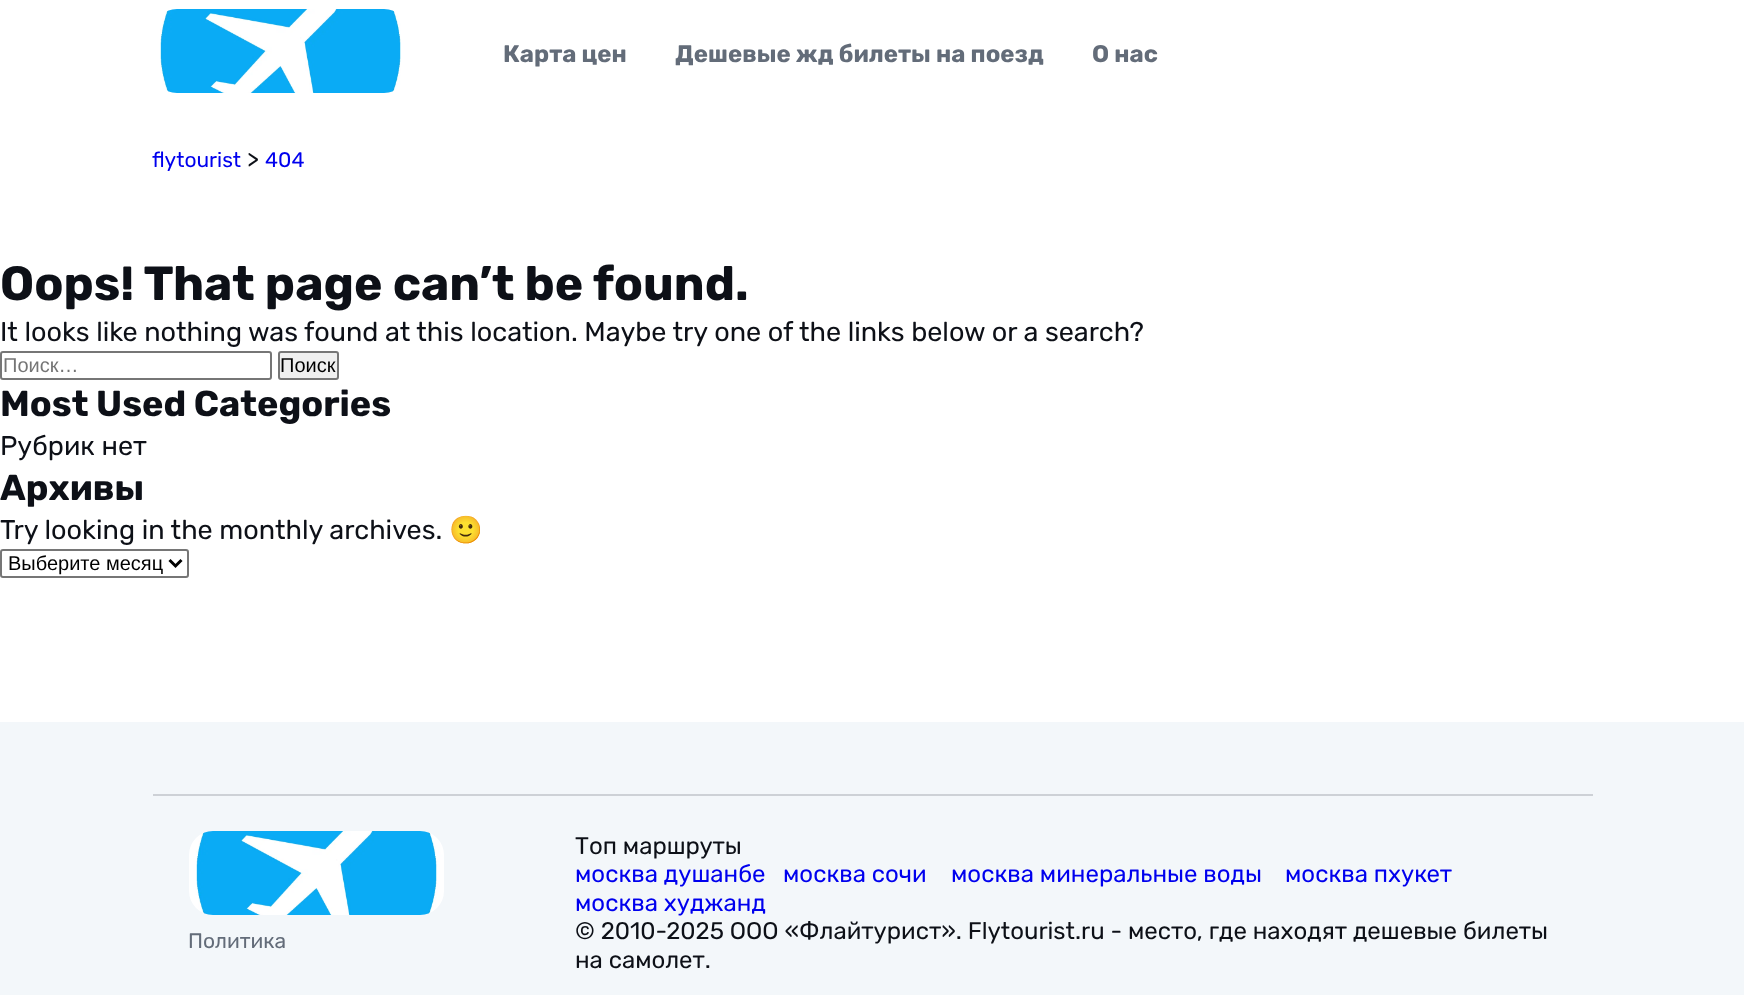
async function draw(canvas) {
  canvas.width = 1744;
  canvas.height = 995;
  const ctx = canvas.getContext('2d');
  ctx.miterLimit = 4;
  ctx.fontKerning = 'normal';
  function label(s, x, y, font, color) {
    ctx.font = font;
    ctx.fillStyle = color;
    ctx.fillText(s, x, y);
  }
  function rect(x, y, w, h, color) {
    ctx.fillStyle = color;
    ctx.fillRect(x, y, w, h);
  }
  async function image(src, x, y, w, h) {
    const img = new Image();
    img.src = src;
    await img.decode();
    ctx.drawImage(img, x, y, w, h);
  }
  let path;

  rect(0, 0, 1744, 995, '#fff');
  await image('assets/img1.png', 160, 9, 241, 84);
  label('Карта цен', 503, 62, 'bold 24px Rubik', '#636c79');
  label('Дешевые жд билеты на поезд', 675, 62, 'bold 24px Rubik', '#636c79');
  label('О нас', 1092, 62, 'bold 24px Rubik', '#636c79');
  label('flytourist', 152, 167, '21px Rubik', '#00e');
  label('>', 247, 167, '24px Rubik', '#0d1017');
  label('404', 265, 167, '21px Rubik', '#00e');
  label('Oops! That page can’t be found.', 0, 300, 'bold 48px Rubik', '#0d1017');
  label('It looks like nothing was found at this location. Maybe try one of the links below or a search?', 0, 341, '27px Rubik', '#0d1017');
  ctx.beginPath();
  ctx.roundRect(1, 352, 270, 27, 2);
  ctx.strokeStyle = '#767676';
  ctx.lineWidth = 2;
  ctx.stroke();
  label('Поиск…', 3, 372, '20px Liberation Sans', '#757575');
  ctx.fillStyle = '#efefef';
  ctx.beginPath();
  ctx.roundRect(279, 352, 59, 27, 2);
  ctx.fill();
  ctx.stroke();
  label('Поиск', 280, 372, '20px Liberation Sans', '#000');
  label('Most Used Categories', 0, 416, 'bold 36px Rubik', '#0d1017');
  label('Рубрик нет', 0, 455, '27px Rubik', '#0d1017');
  label('Архивы', 0, 500, 'bold 36px Rubik', '#0d1017');
  label('Try looking in the monthly archives.', 0, 539, '27px Rubik', '#0d1017');
  label('🙂', 449, 539, '27px Noto Color Emoji', '#0d1017');
  ctx.beginPath();
  ctx.roundRect(1, 550, 187, 27, 2);
  ctx.stroke();
  path = new Path2D('M169.5 560L175.5 566L181.5 560');
  ctx.strokeStyle = '#000';
  ctx.lineWidth = 3;
  ctx.stroke(path);
  label('Выберите месяц', 8, 570, '20px Liberation Sans', '#000');
  rect(0, 722, 1744, 273, '#f3f7fa');
  rect(153, 794, 1440, 2, '#cdd1d6');
  await image('assets/img2.png', 189, 831, 255, 84);
  label('Политика', 188, 948, '21px Rubik', '#636c79');
  label('Топ маршруты', 575, 854, '24px Rubik', '#0d1017');
  label('москва душанбе', 575, 882, '24px Rubik', '#00e');
  label('москва сочи', 783, 882, '24px Rubik', '#00e');
  label('москва минеральные воды', 951, 882, '24px Rubik', '#00e');
  label('москва пхукет', 1285, 882, '24px Rubik', '#00e');
  label('москва худжанд', 575, 911, '24px Rubik', '#00e');
  label('© 2010-2025 ООО «Флайтурист». Flytourist.ru - место, где находят дешевые билеты', 575, 939, '24px Rubik', '#0d1017');
  label('на самолет.', 575, 968, '24px Rubik', '#0d1017');
}

draw(document.querySelector('canvas'));
